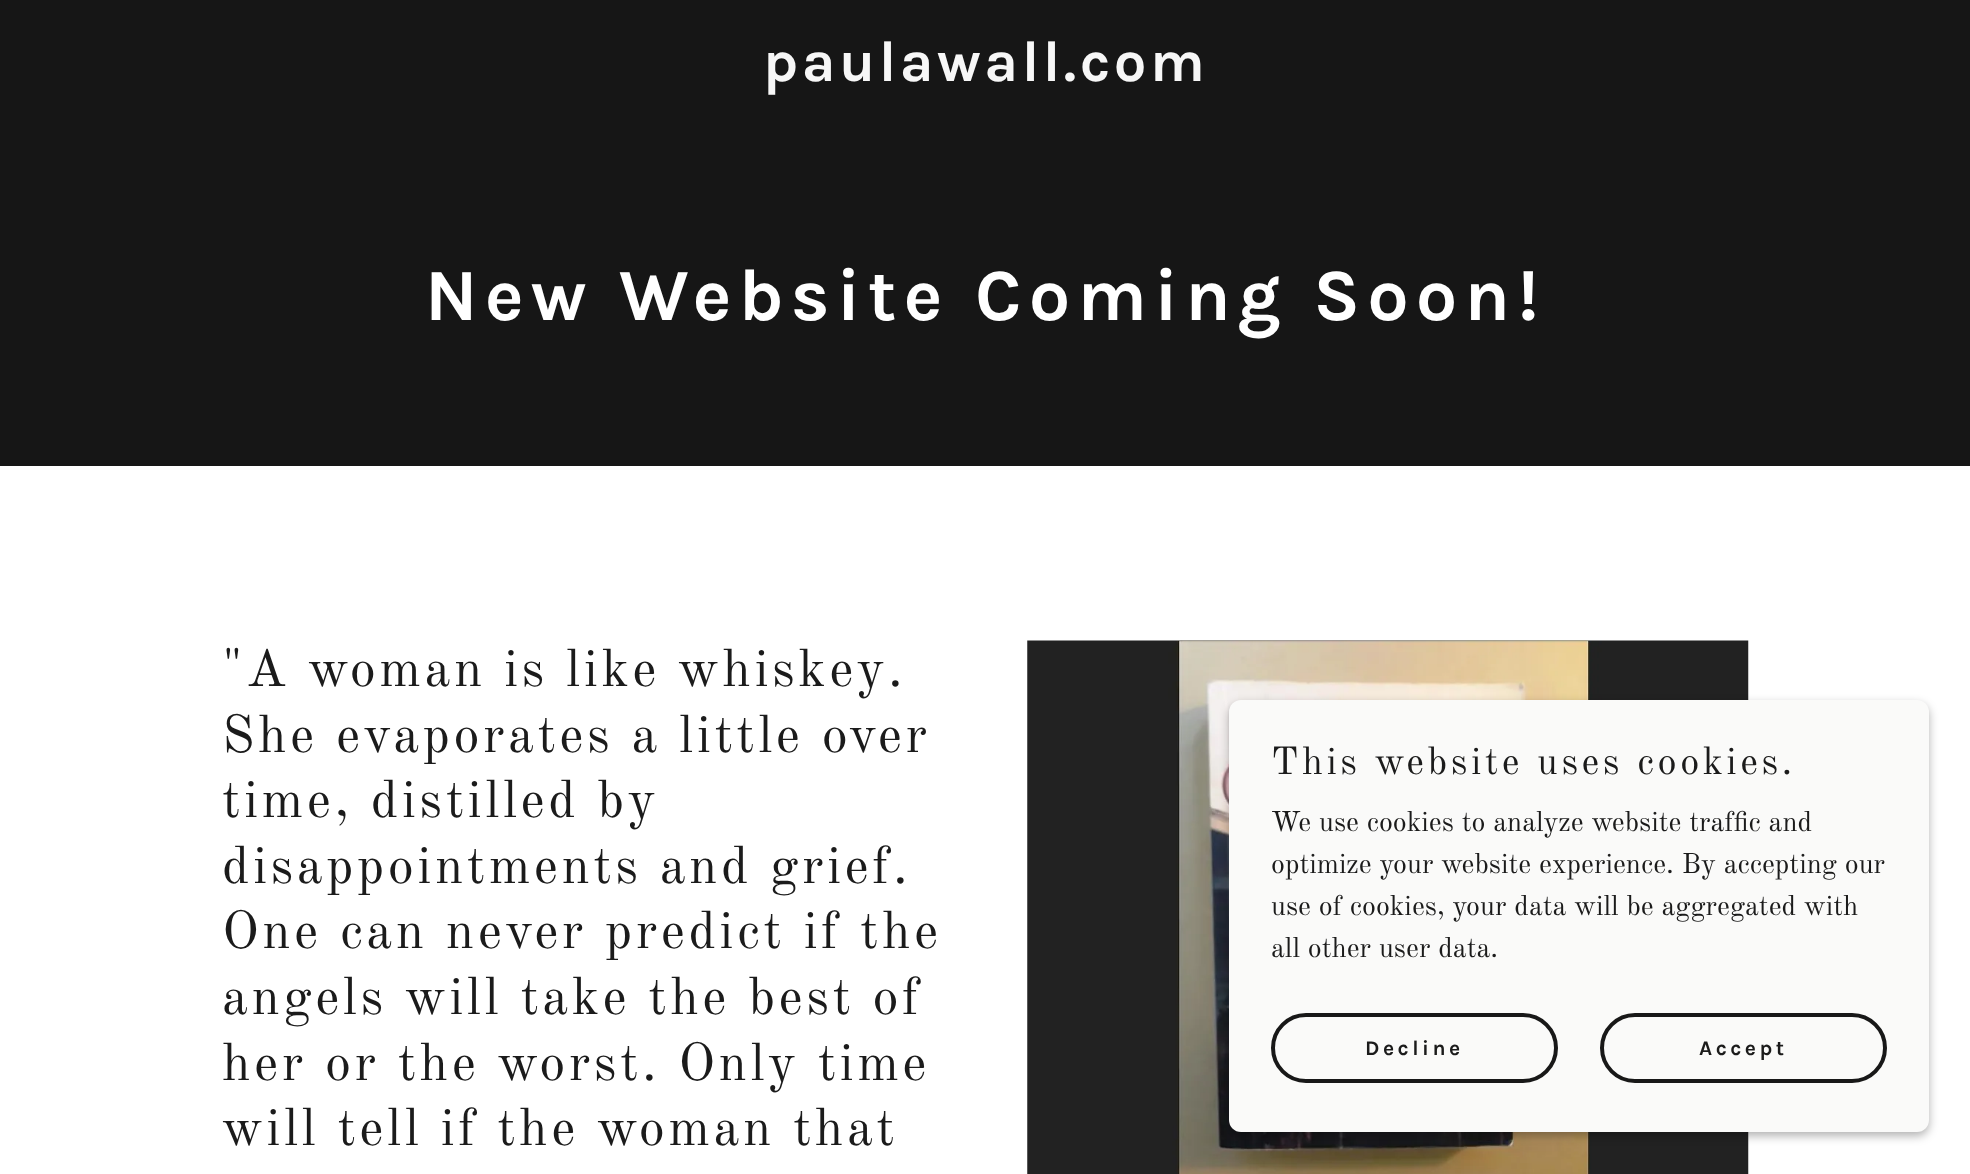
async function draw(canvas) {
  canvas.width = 1970;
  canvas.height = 1174;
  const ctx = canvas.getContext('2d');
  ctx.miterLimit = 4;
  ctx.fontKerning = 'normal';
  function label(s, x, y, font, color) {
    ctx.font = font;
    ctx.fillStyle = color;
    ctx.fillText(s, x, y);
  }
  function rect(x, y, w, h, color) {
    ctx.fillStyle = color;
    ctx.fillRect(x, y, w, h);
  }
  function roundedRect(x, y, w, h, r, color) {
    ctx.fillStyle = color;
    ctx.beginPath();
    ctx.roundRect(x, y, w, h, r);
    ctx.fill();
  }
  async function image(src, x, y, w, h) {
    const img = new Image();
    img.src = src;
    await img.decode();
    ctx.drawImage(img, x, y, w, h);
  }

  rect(0, 0, 1970, 1174, '#161616');
  ctx.letterSpacing = '3.5px';
  label('paulawall.com', 763, 81, 'bold 57.75px Karla', '#f7f7f7');
  ctx.letterSpacing = '7px';
  label('New Website Coming Soon!', 425, 320, 'bold 73.5px Karla', '#fff');
  rect(0, 466, 1970, 708, '#fff');
  ctx.letterSpacing = '3.5px';
  label('"A woman is like whiskey.', 222, 686, '52.5px Old Standard TT', '#1b1b1b');
  label('She evaporates a little over', 222, 752, '52.5px Old Standard TT', '#1b1b1b');
  label('time, distilled by', 222, 817, '52.5px Old Standard TT', '#1b1b1b');
  label('disappointments and grief.', 222, 883, '52.5px Old Standard TT', '#1b1b1b');
  label('One can never predict if the', 222, 948, '52.5px Old Standard TT', '#1b1b1b');
  label('angels will take the best of', 222, 1014, '52.5px Old Standard TT', '#1b1b1b');
  label('her or the worst. Only time', 222, 1080, '52.5px Old Standard TT', '#1b1b1b');
  label('will tell if the woman that', 222, 1145, '52.5px Old Standard TT', '#1b1b1b');
  await image('assets/img1.png', 1027, 640, 722, 534);
  ctx.fillStyle = '#0000004d';
  ctx.filter = 'blur(5px)';
  ctx.beginPath();
  ctx.roundRect(1229, 704, 700, 432, 12);
  ctx.fill();
  ctx.filter = 'none';
  roundedRect(1229, 700, 700, 432, 12, '#fafaf9');
  label('This website uses cookies.', 1271, 774, '38.5px Old Standard TT', '#1b1b1b');
  ctx.letterSpacing = '0px';
  label('We use cookies to analyze website traffic and', 1271, 831, '28px Old Standard TT', '#1b1b1b');
  label('optimize your website experience. By accepting our', 1271, 873, '28px Old Standard TT', '#1b1b1b');
  label('use of cookies, your data will be aggregated with', 1271, 915, '28px Old Standard TT', '#1b1b1b');
  label('all other user data.', 1271, 957, '28px Old Standard TT', '#1b1b1b');
  ctx.beginPath();
  ctx.roundRect(1273, 1015, 283, 66, 33);
  ctx.strokeStyle = '#181818';
  ctx.lineWidth = 4;
  ctx.stroke();
  ctx.letterSpacing = '3.5px';
  label('Decline', 1365, 1055, 'bold 21px Karla', '#1b1b1b');
  ctx.beginPath();
  ctx.roundRect(1602, 1015, 283, 66, 33);
  ctx.stroke();
  label('Accept', 1699, 1055, 'bold 21px Karla', '#1b1b1b');
}

draw(document.querySelector('canvas'));
